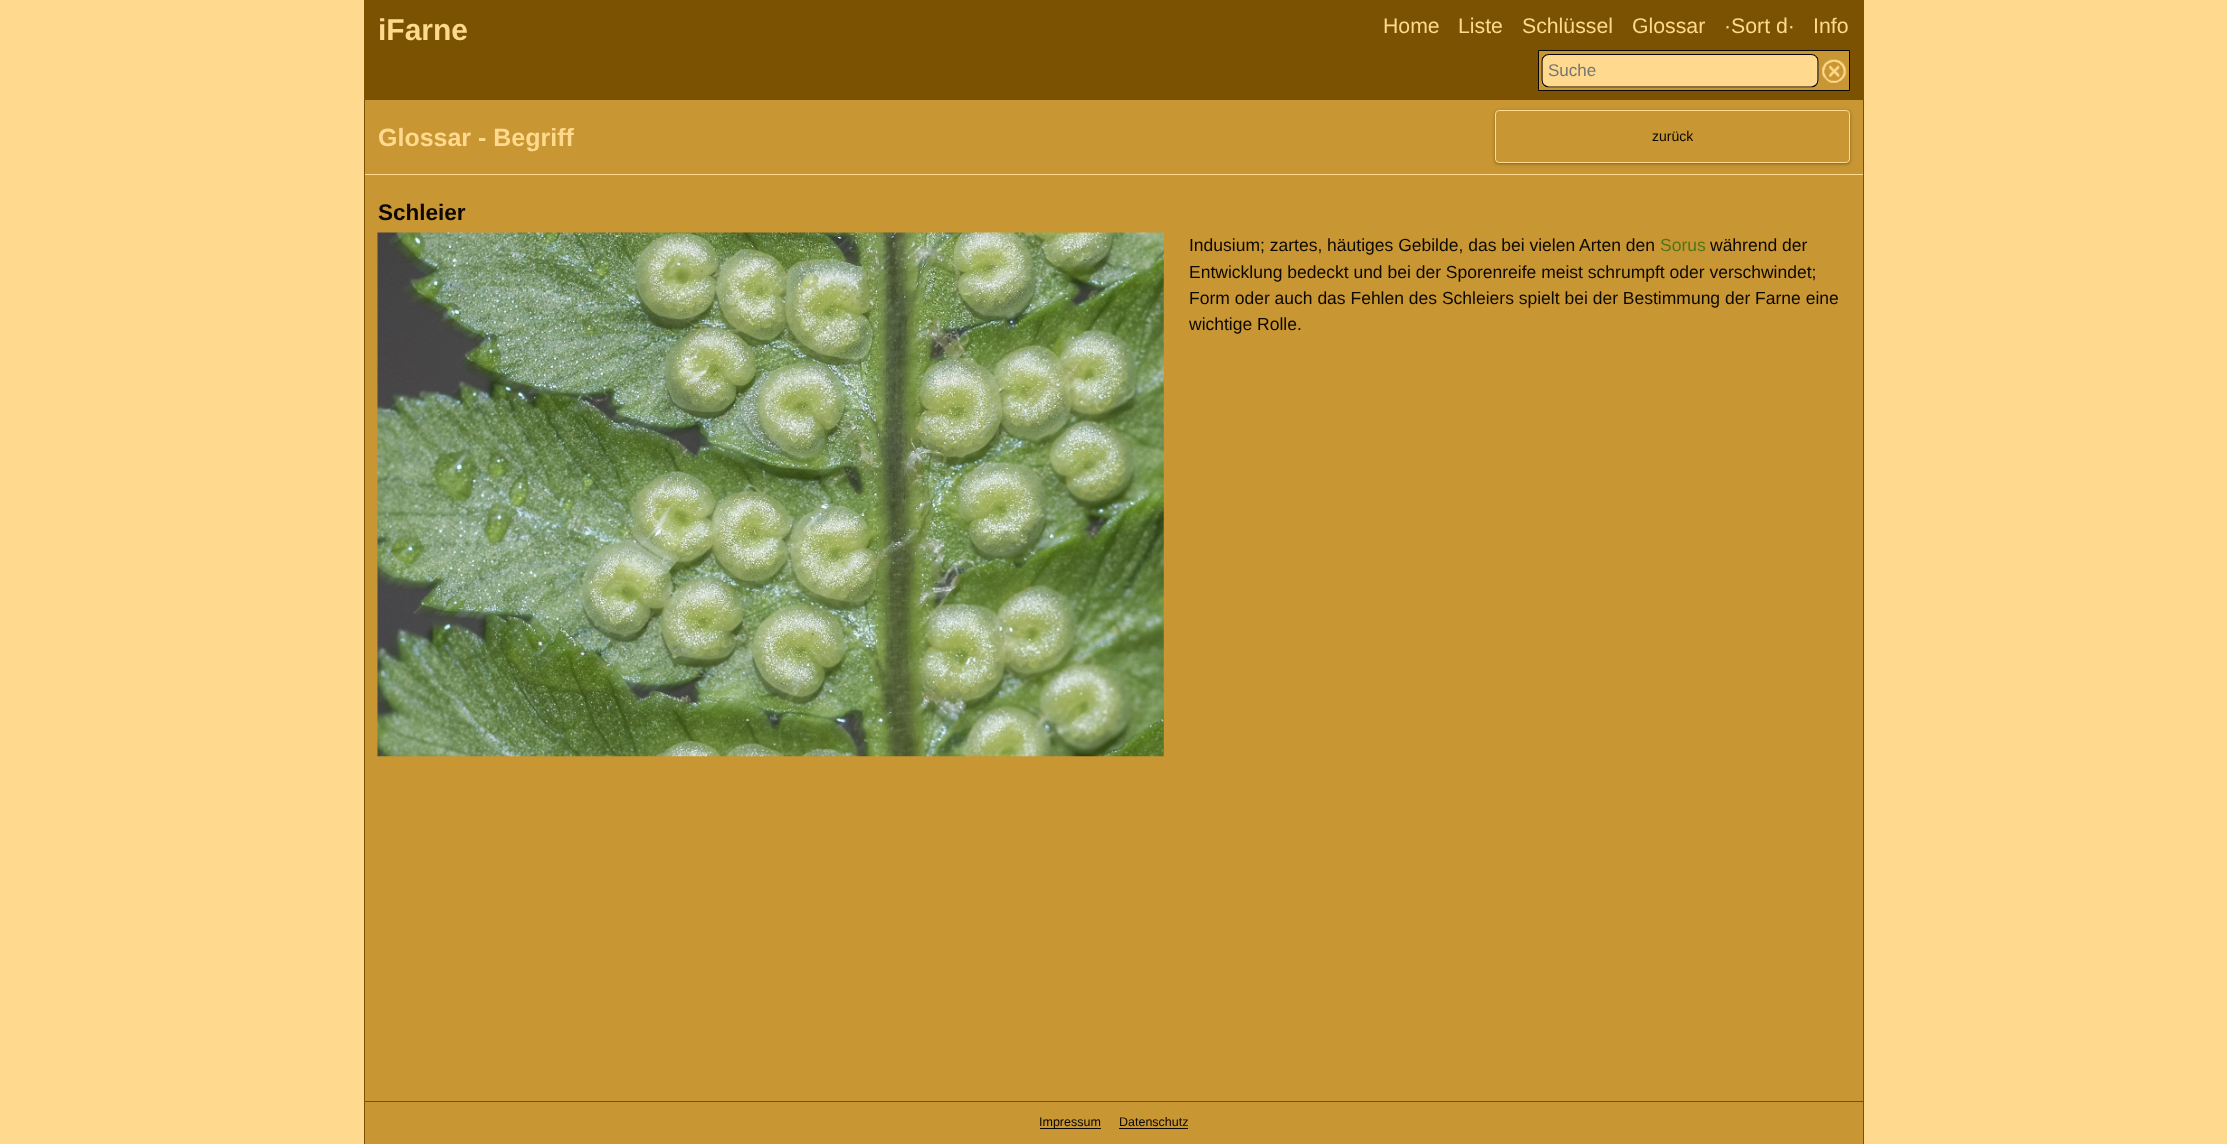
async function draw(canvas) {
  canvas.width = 2227;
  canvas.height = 1144;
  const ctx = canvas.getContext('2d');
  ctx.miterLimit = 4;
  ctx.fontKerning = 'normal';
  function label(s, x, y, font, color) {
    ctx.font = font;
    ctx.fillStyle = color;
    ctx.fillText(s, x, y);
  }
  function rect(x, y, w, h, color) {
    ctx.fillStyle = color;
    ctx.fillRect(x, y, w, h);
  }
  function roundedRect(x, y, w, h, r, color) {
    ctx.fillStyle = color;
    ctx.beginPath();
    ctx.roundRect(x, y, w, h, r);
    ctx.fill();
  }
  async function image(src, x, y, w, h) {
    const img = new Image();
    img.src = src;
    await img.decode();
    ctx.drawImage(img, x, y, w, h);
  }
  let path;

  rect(0, 0, 2227, 1144, '#ffd98d');
  rect(365, 100, 1498, 1044, '#c89632');
  rect(1863, 0, 1, 1144, '#7b5201');
  rect(364, 0, 1, 1144, '#7b5201');
  rect(365, 0, 1498, 100, '#7b5201');
  label('iFarne', 378, 40, 'bold 30px Liberation Sans', '#ffd98d');
  label('Home', 1383, 33, '21.25px Liberation Sans', '#ffd98d');
  label('Liste', 1458, 33, '21.25px Liberation Sans', '#ffd98d');
  label('Schlüssel', 1522, 33, '21.25px Liberation Sans', '#ffd98d');
  label('Glossar', 1632, 33, '21.25px Liberation Sans', '#ffd98d');
  label('·Sort d·', 1724, 33, '21.25px Liberation Sans', '#ffd98d');
  label('Info', 1813, 33, '21.25px Liberation Sans', '#ffd98d');
  ctx.fillStyle = '#c89632';
  ctx.beginPath();
  ctx.rect(1538.5, 50.5, 311, 40);
  ctx.fill();
  ctx.strokeStyle = '#0c0800';
  ctx.stroke();
  roundedRect(1541, 54, 278, 34, 8, '#ffd98d');
  path = new Path2D('M1816 56.5C1817.5 57.5 1818 59.5 1818 61V80C1818 82 1817.5 83.5 1816 85C1815 86 1813 87 1811 87H1549C1547 87 1545 86 1544 85');
  ctx.lineWidth = 1.2;
  ctx.stroke(path);
  path = new Path2D('M1544 85C1542.5 83.5 1542 82 1542 80V61C1542 59.5 1542.5 57.5 1544 56.5C1545 55 1547 54.5 1549 54.5H1811C1813 54.5 1815 55 1816 56.5');
  ctx.strokeStyle = '#080500';
  ctx.stroke(path);
  label('Suche', 1548, 76, '17px Liberation Sans', '#757575');
  await image('assets/img1.png', 1822, 59, 25, 24);
  rect(365, 174, 1498, 1, '#ffd98d');
  label('Glossar - Begriff', 378, 146, 'bold 25px Liberation Sans', '#ffd98d');
  ctx.fillStyle = '#0000003d';
  ctx.filter = 'blur(1px)';
  ctx.beginPath();
  ctx.roundRect(1495, 111, 355, 53, 4);
  ctx.fill();
  ctx.filter = 'none';
  ctx.fillStyle = '#0000001f';
  ctx.filter = 'blur(2px)';
  ctx.beginPath();
  ctx.roundRect(1495, 111, 355, 53, 4);
  ctx.fill();
  ctx.filter = 'none';
  ctx.fillStyle = '#c89632';
  ctx.beginPath();
  ctx.roundRect(1495.5, 110.5, 354, 52, 3.5);
  ctx.fill();
  ctx.strokeStyle = '#ffd98d';
  ctx.lineWidth = 1;
  ctx.stroke();
  label('zurück', 1652, 141, '14px Liberation Sans', '#0c0800');
  label('Schleier', 378, 220, 'bold 22.5px Liberation Sans', '#0c0800');
  await image('assets/img2.png', 377, 232, 787, 525);
  label('Indusium; zartes, häutiges Gebilde, das bei vielen Arten den', 1189, 251, '17.5px Liberation Sans', '#0c0800');
  label('Sorus', 1660, 251, '17.5px Liberation Sans', '#51751a');
  label('während der', 1710, 251, '17.5px Liberation Sans', '#0c0800');
  label('Entwicklung bedeckt und bei der Sporenreife meist schrumpft oder verschwindet;', 1189, 278, '17.5px Liberation Sans', '#0c0800');
  label('Form oder auch das Fehlen des Schleiers spielt bei der Bestimmung der Farne eine', 1189, 304, '17.5px Liberation Sans', '#0c0800');
  label('wichtige Rolle.', 1189, 330, '17.5px Liberation Sans', '#0c0800');
  rect(365, 1101, 1498, 1, '#7b5201');
  rect(1040, 1128, 61, 1, '#0c0800');
  label('Impressum', 1039, 1126, '12.5px Liberation Sans', '#0c0800');
  label('Datenschutz', 1119, 1126, '12.5px Liberation Sans', '#0c0800');
  rect(1119, 1128, 69, 1, '#0c0800');
}

draw(document.querySelector('canvas'));
